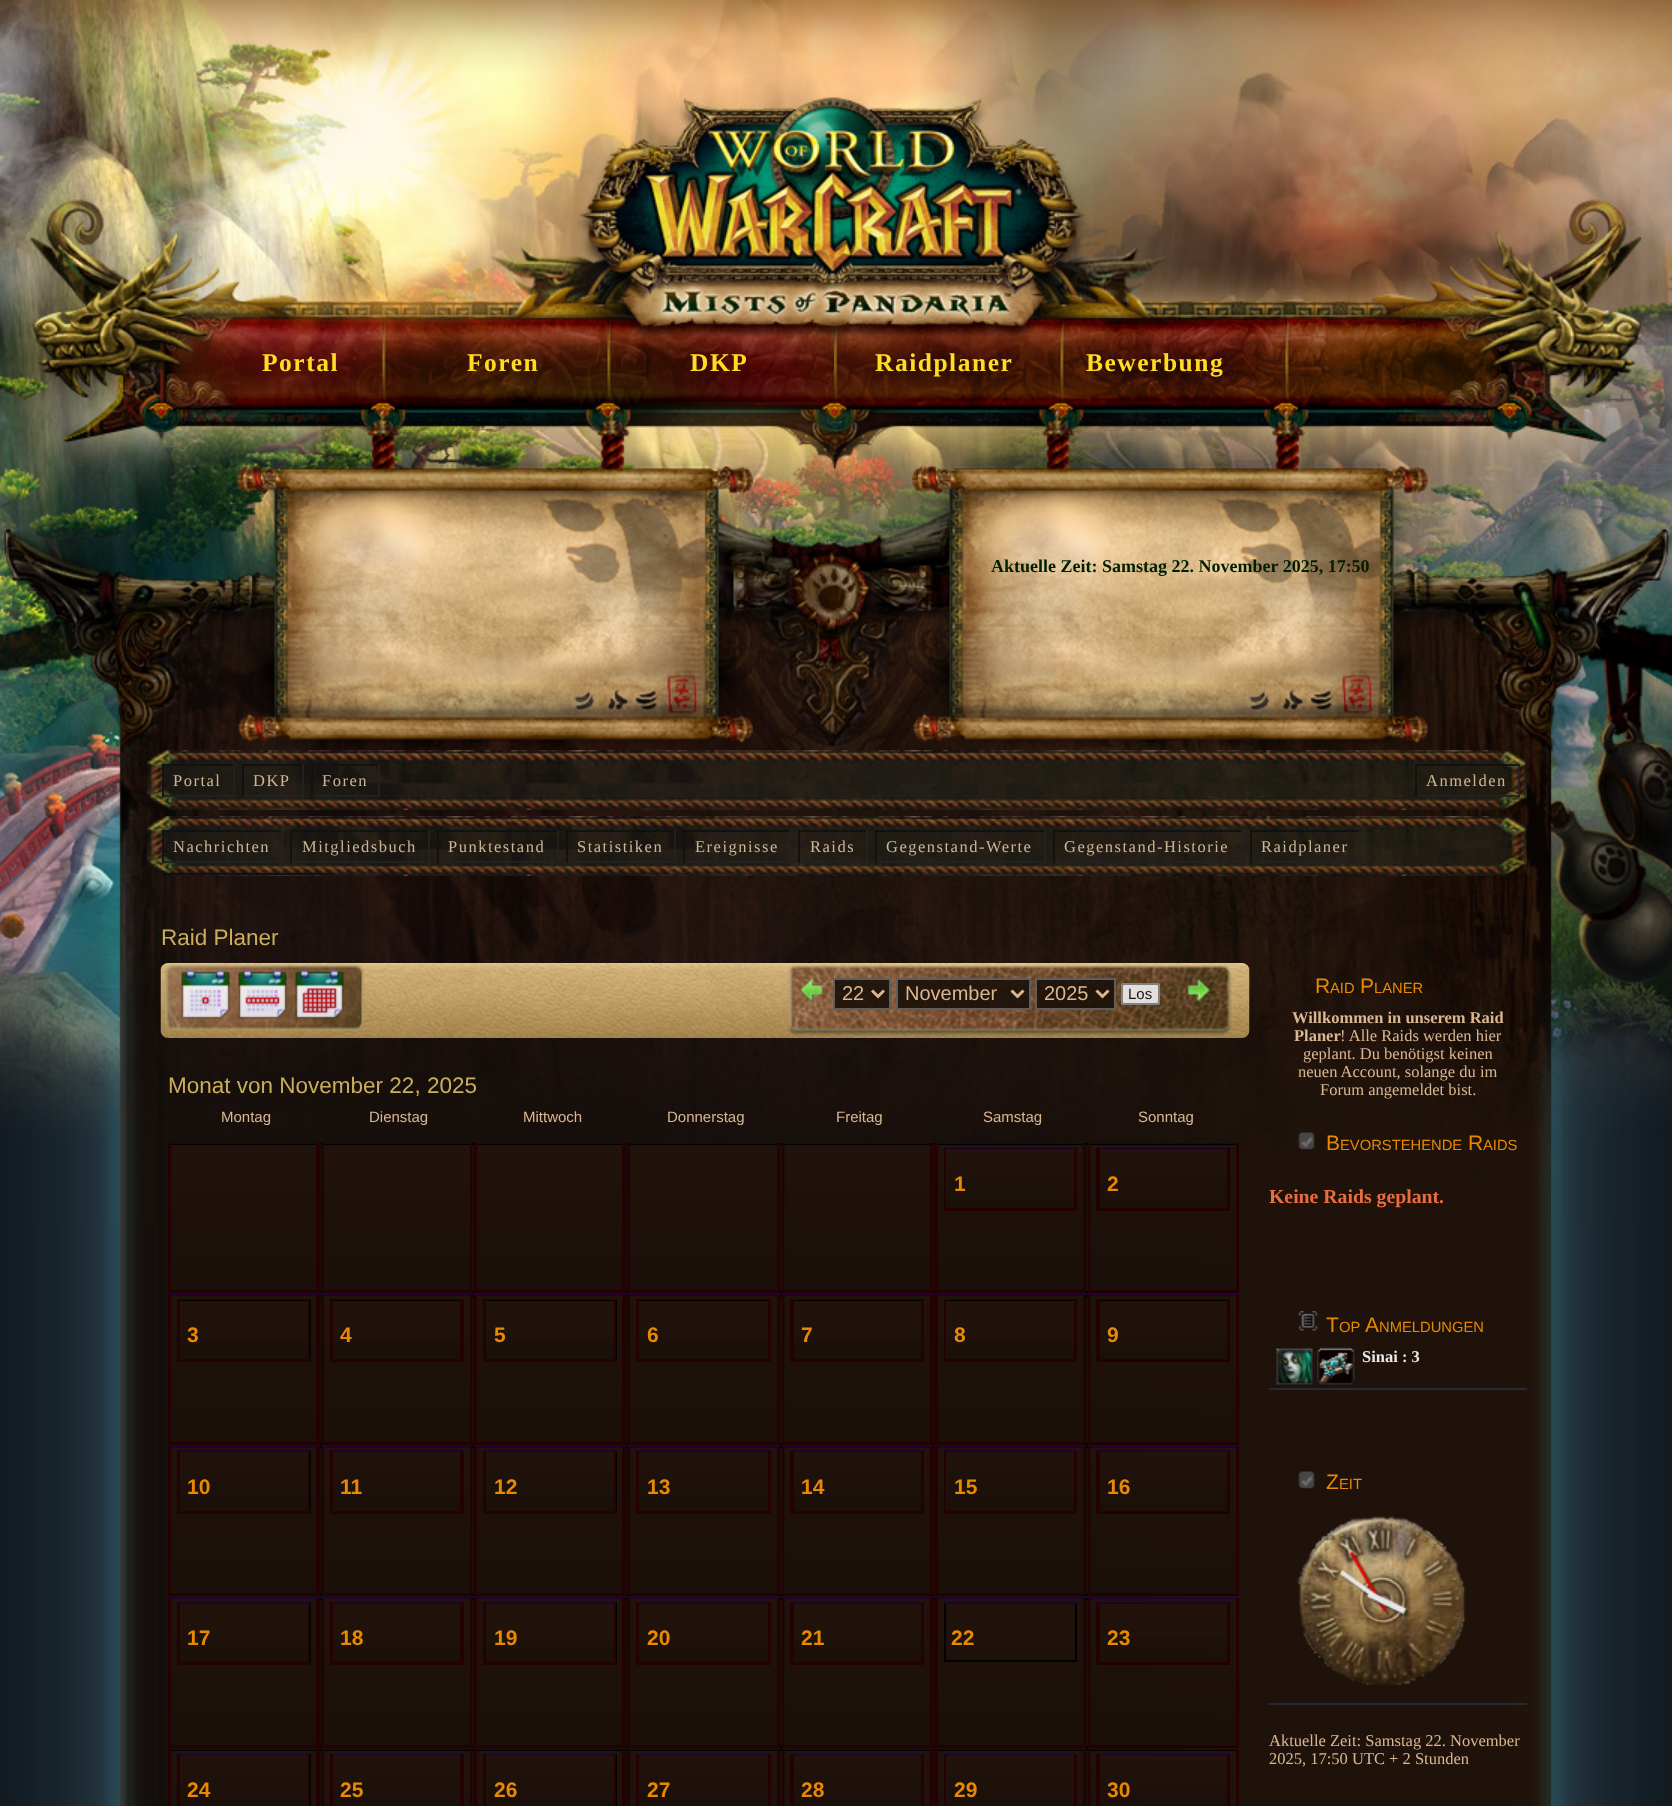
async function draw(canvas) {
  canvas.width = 1672;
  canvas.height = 1806;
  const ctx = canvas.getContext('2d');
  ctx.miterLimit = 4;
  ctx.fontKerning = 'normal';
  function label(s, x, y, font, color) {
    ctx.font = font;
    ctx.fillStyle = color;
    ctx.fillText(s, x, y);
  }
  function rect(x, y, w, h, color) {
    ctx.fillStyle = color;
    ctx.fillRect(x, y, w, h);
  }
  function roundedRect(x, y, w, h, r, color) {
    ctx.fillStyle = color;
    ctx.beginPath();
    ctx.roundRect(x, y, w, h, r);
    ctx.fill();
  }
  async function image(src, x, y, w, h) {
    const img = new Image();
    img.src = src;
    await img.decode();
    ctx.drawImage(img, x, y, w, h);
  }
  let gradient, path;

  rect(0, 0, 1672, 1806, '#fff');
  await image('assets/img1.png', 0, 1221, 1672, 585);
  await image('assets/img2.png', 0, 0, 1672, 1221);
  ctx.letterSpacing = '1.5px';
  label('Portal', 262, 371, 'bold 25.5px Liberation Serif', '#fd2');
  label('Foren', 467, 371, 'bold 25.5px Liberation Serif', '#fd2');
  label('DKP', 690, 371, 'bold 25.5px Liberation Serif', '#fd2');
  label('Raidplaner', 875, 371, 'bold 25.5px Liberation Serif', '#fd2');
  label('Bewerbung', 1086, 371, 'bold 25.5px Liberation Serif', '#fd2');
  await image('assets/img3.png', 237, 407, 516, 340);
  await image('assets/img4.png', 912, 407, 516, 340);
  ctx.letterSpacing = '0px';
  label('Aktuelle Zeit: Samstag 22. November 2025, 17:50', 991, 572, 'bold 18px Liberation Serif', '#001f00');
  await image('assets/img5.png', 147, 750, 1380, 60);
  rect(162, 764, 72, 2, '#111111e6');
  rect(233, 764, 2, 33, '#222222e6');
  rect(162, 795, 72, 2, '#222222e6');
  rect(162, 764, 2, 33, '#111111e6');
  ctx.letterSpacing = '1.5px';
  label('Portal', 173, 786, '16.5px Liberation Serif', '#ceb695');
  rect(242, 764, 61, 2, '#111111e6');
  rect(302, 764, 2, 33, '#222222e6');
  rect(242, 795, 61, 2, '#222222e6');
  rect(242, 764, 2, 33, '#111111e6');
  label('DKP', 253, 786, '16.5px Liberation Serif', '#ceb695');
  rect(311, 764, 69, 2, '#111111e6');
  rect(378, 764, 2, 33, '#222020');
  rect(311, 795, 69, 2, '#222222e6');
  rect(311, 764, 2, 33, '#111111e6');
  label('Foren', 322, 786, '16.5px Liberation Serif', '#ceb695');
  rect(1415, 764, 105, 2, '#111111e6');
  rect(1518, 764, 2, 33, '#222222e6');
  rect(1415, 795, 105, 2, '#222222e6');
  rect(1415, 764, 2, 33, '#111111e6');
  label('Anmelden', 1426, 786, '16.5px Liberation Serif', '#ceb695');
  await image('assets/img6.png', 147, 816, 1380, 60);
  rect(162, 830, 120, 2, '#111111e6');
  rect(281, 830, 2, 33, '#222222e6');
  rect(162, 861, 120, 2, '#222222e6');
  rect(162, 830, 2, 33, '#111111e6');
  label('Nachrichten', 173, 852, '16.5px Liberation Serif', '#ceb695');
  rect(290, 830, 139, 2, '#111111e6');
  rect(428, 830, 2, 33, '#222222e6');
  rect(290, 861, 139, 2, '#222222e6');
  rect(290, 830, 2, 33, '#111111e6');
  label('Mitgliedsbuch', 302, 852, '16.5px Liberation Serif', '#ceb695');
  rect(437, 830, 121, 2, '#111111e6');
  rect(557, 830, 2, 33, '#222222e6');
  rect(437, 861, 121, 2, '#222222e6');
  rect(437, 830, 2, 33, '#111111e6');
  label('Punktestand', 448, 852, '16.5px Liberation Serif', '#ceb695');
  rect(566, 830, 109, 2, '#111111e6');
  rect(674, 830, 2, 33, '#222222e6');
  rect(566, 861, 109, 2, '#222222e6');
  rect(566, 830, 2, 33, '#111111e6');
  label('Statistiken', 577, 852, '16.5px Liberation Serif', '#ceb695');
  rect(683, 830, 108, 2, '#111111e6');
  rect(789, 830, 2, 33, '#222222e6');
  rect(683, 861, 108, 2, '#222222e6');
  rect(683, 830, 2, 33, '#111111e6');
  label('Ereignisse', 695, 852, '16.5px Liberation Serif', '#ceb695');
  rect(798, 830, 69, 2, '#111111e6');
  rect(866, 830, 2, 33, '#222222e6');
  rect(798, 861, 69, 2, '#222222e6');
  rect(798, 830, 2, 33, '#111111e6');
  label('Raids', 810, 852, '16.5px Liberation Serif', '#ceb695');
  rect(875, 830, 171, 2, '#111111e6');
  rect(1044, 830, 2, 33, '#222222e6');
  rect(875, 861, 171, 2, '#222222e6');
  rect(875, 830, 2, 33, '#111111e6');
  label('Gegenstand-Werte', 886, 852, '16.5px Liberation Serif', '#ceb695');
  rect(1053, 830, 189, 2, '#111111e6');
  rect(1241, 830, 2, 33, '#222222e6');
  rect(1053, 861, 189, 2, '#222222e6');
  rect(1053, 830, 2, 33, '#111111e6');
  label('Gegenstand-Historie', 1064, 852, '16.5px Liberation Serif', '#ceb695');
  rect(1250, 830, 111, 2, '#111111e6');
  rect(1359, 830, 2, 33, '#222222e6');
  rect(1250, 861, 111, 2, '#222222e6');
  rect(1250, 830, 2, 33, '#111111e6');
  label('Raidplaner', 1261, 852, '16.5px Liberation Serif', '#ceb695');
  rect(162, 873, 174, 2, '#111111e6');
  rect(335, 873, 2, 3, '#222020');
  rect(162, 873, 2, 3, '#111111e6');
  await image('assets/img7.png', 153, 897, 6, 6);
  await image('assets/img8.png', 1527, 897, 6, 6);
  ctx.letterSpacing = '0px';
  label('Raid Planer', 161, 945, '22.5px Liberation Sans', '#cbae5c');
  await image('assets/img9.png', 153, 951, 6, 6);
  await image('assets/img10.png', 1527, 951, 6, 6);
  await image('assets/img11.png', 160, 963, 1090, 75);
  await image('assets/img12.png', 164, 964, 201, 67);
  await image('assets/img13.png', 181, 970, 49, 49);
  await image('assets/img14.png', 238, 970, 49, 49);
  await image('assets/img15.png', 295, 970, 49, 49);
  await image('assets/img16.png', 787, 965, 445, 71);
  await image('assets/img17.png', 800, 979, 23, 22);
  rect(833, 978, 58, 32, '#1a0f08e6');
  ctx.strokeStyle = '#666666e6';
  ctx.lineWidth = 2;
  ctx.strokeRect(834, 979, 56, 30);
  path = new Path2D('M872 990.5L878 996.5L884 990.5');
  ctx.strokeStyle = '#efc9a0e6';
  ctx.lineWidth = 3;
  ctx.stroke(path);
  label('22', 842, 1000, '20px Liberation Sans', '#dbb791');
  rect(896, 978, 135, 32, '#1a0f08e6');
  ctx.strokeStyle = '#666666e6';
  ctx.lineWidth = 2;
  ctx.strokeRect(897, 979, 133, 30);
  path = new Path2D('M1011.5 990.5L1017.5 996.5L1023.5 990.5');
  ctx.strokeStyle = '#efc9a0e6';
  ctx.lineWidth = 3;
  ctx.stroke(path);
  label('November', 905, 1000, '20px Liberation Sans', '#dbb791');
  rect(1035, 978, 81, 32, '#1a0f08e6');
  ctx.strokeStyle = '#666666e6';
  ctx.lineWidth = 2;
  ctx.strokeRect(1036, 979, 79, 30);
  path = new Path2D('M1096.5 990.5L1102.5 996.5L1108.5 990.5');
  ctx.strokeStyle = '#efc9a0e6';
  ctx.lineWidth = 3;
  ctx.stroke(path);
  label('2025', 1044, 1000, '20px Liberation Sans', '#dbb791');
  roundedRect(1121, 983, 39, 22, 3, '#efefefe6');
  ctx.beginPath();
  ctx.roundRect(1122, 984, 37, 20, 2);
  ctx.strokeStyle = '#767676e6';
  ctx.lineWidth = 2;
  ctx.stroke();
  label('Los', 1128, 999, '15px Liberation Sans', '#161616');
  await image('assets/img18.png', 1187, 979, 23, 22);
  await image('assets/img19.png', 161, 1046, 5, 5);
  await image('assets/img20.png', 1244, 1045, 6, 6);
  label('Monat von November 22, 2025', 168, 1093, '22.5px Liberation Sans', '#cbae5c');
  label('Montag', 221, 1122, '15px Liberation Sans', '#dbb791');
  label('Dienstag', 369, 1122, '15px Liberation Sans', '#dbb791');
  label('Mittwoch', 523, 1122, '15px Liberation Sans', '#dbb791');
  label('Donnerstag', 667, 1122, '15px Liberation Sans', '#dbb791');
  label('Freitag', 836, 1122, '15px Liberation Sans', '#dbb791');
  label('Samstag', 983, 1122, '15px Liberation Sans', '#dbb791');
  label('Sonntag', 1138, 1122, '15px Liberation Sans', '#dbb791');
  ctx.strokeStyle = '#000000e6';
  ctx.strokeRect(169, 1144, 1069, 148);
  gradient = ctx.createLinearGradient(244, 1145, 244, 1290);
  gradient.addColorStop(0, '#22130ce6');
  gradient.addColorStop(1, '#1a0f09e6');
  ctx.fillStyle = gradient;
  ctx.fillRect(171, 1145, 145, 145);
  ctx.fillStyle = '#21012f';
  path = new Path2D('M168 1143H320L316 1144H171Z');
  ctx.fill(path);
  ctx.fillStyle = '#240204';
  path = new Path2D('M320 1143V1293L316 1290V1144Z');
  ctx.fill(path);
  rect(168, 1290, 152, 3, '#230204');
  path = new Path2D('M168 1293V1143L171 1144V1290Z');
  ctx.fill(path);
  gradient = ctx.createLinearGradient(397, 1145, 397, 1290);
  gradient.addColorStop(0, '#21130c');
  gradient.addColorStop(1, '#1a0f09');
  ctx.fillStyle = gradient;
  ctx.fillRect(324, 1145, 146, 145);
  ctx.fillStyle = '#21022f';
  path = new Path2D('M321 1143H472L470 1144H324Z');
  ctx.fill(path);
  ctx.fillStyle = '#240204';
  path = new Path2D('M472 1143V1293L470 1290V1144Z');
  ctx.fill(path);
  rect(321, 1290, 152, 3, '#240204');
  path = new Path2D('M321 1293V1143L324 1144V1290Z');
  ctx.fill(path);
  gradient = ctx.createLinearGradient(550, 1145, 550, 1290);
  gradient.addColorStop(0, '#21130c');
  gradient.addColorStop(1, '#1a0f09');
  ctx.fillStyle = gradient;
  ctx.fillRect(477, 1145, 145, 145);
  ctx.fillStyle = '#21022f';
  path = new Path2D('M474 1143H626L622 1144H477Z');
  ctx.fill(path);
  ctx.fillStyle = '#240104';
  path = new Path2D('M626 1143V1293L622 1290V1144Z');
  ctx.fill(path);
  rect(474, 1290, 152, 3, '#240204');
  path = new Path2D('M474 1293V1143L477 1144V1290Z');
  ctx.fill(path);
  gradient = ctx.createLinearGradient(704, 1145, 704, 1290);
  gradient.addColorStop(0, '#21130c');
  gradient.addColorStop(1, '#1a0f09');
  ctx.fillStyle = gradient;
  ctx.fillRect(630, 1145, 147, 145);
  ctx.fillStyle = '#21022f';
  path = new Path2D('M627 1143H780L777 1144H630Z');
  ctx.fill(path);
  ctx.fillStyle = '#240204';
  path = new Path2D('M780 1143V1293L777 1290V1144Z');
  ctx.fill(path);
  rect(627, 1290, 153, 3, '#240204');
  ctx.fillStyle = '#240104';
  path = new Path2D('M627 1293V1143L630 1144V1290Z');
  ctx.fill(path);
  gradient = ctx.createLinearGradient(857, 1145, 857, 1290);
  gradient.addColorStop(0, '#22130ce6');
  gradient.addColorStop(1, '#1a0f09e6');
  ctx.fillStyle = gradient;
  ctx.fillRect(785, 1145, 145, 145);
  ctx.fillStyle = '#21022f';
  path = new Path2D('M782 1143H933L930 1144H784Z');
  ctx.fill(path);
  ctx.fillStyle = '#240204';
  path = new Path2D('M933 1143V1293L930 1290V1144Z');
  ctx.fill(path);
  rect(782, 1290, 151, 3, '#240204');
  path = new Path2D('M782 1293V1143L784 1144V1290Z');
  ctx.fill(path);
  gradient = ctx.createLinearGradient(1010, 1145, 1010, 1290);
  gradient.addColorStop(0, '#22130ce6');
  gradient.addColorStop(1, '#1a0f09e6');
  ctx.fillStyle = gradient;
  ctx.fillRect(938, 1145, 145, 145);
  ctx.fillStyle = '#1f002e';
  path = new Path2D('M934 1143H1086L1083 1144H938Z');
  ctx.fill(path);
  ctx.fillStyle = '#240204';
  path = new Path2D('M1086 1143V1293L1083 1290V1144Z');
  ctx.fill(path);
  rect(935, 1290, 151, 3, '#240204');
  path = new Path2D('M934 1293V1143L938 1144V1290Z');
  ctx.fill(path);
  ctx.strokeRect(945, 1149, 131, 61);
  gradient = ctx.createLinearGradient(1010, 1149, 1010, 1208);
  gradient.addColorStop(0, '#22130ce6');
  gradient.addColorStop(1, '#1a0f09e6');
  ctx.fillStyle = gradient;
  ctx.fillRect(947, 1149, 127, 59);
  ctx.fillStyle = '#1f002e';
  path = new Path2D('M944 1148H1077L1074 1149H946Z');
  ctx.fill(path);
  ctx.fillStyle = '#240204';
  path = new Path2D('M1077 1148V1210L1074 1208V1149Z');
  ctx.fill(path);
  rect(944, 1208, 133, 3, '#240104');
  ctx.fillStyle = '#240204';
  path = new Path2D('M944 1210V1148L946 1149V1208Z');
  ctx.fill(path);
  label('1', 954, 1191, 'bold 21px Liberation Sans', '#e88901');
  gradient = ctx.createLinearGradient(1163, 1145, 1163, 1290);
  gradient.addColorStop(0, '#22130ce6');
  gradient.addColorStop(1, '#1a0f09e6');
  ctx.fillStyle = gradient;
  ctx.fillRect(1091, 1145, 145, 145);
  ctx.fillStyle = '#1f002e';
  path = new Path2D('M1088 1143H1239L1236 1144H1090Z');
  ctx.fill(path);
  ctx.fillStyle = '#250003e6';
  path = new Path2D('M1239 1143V1293L1236 1290V1144Z');
  ctx.fill(path);
  rect(1088, 1290, 151, 3, '#250003e6');
  ctx.fillStyle = '#240104';
  path = new Path2D('M1088 1293V1143L1090 1144V1290Z');
  ctx.fill(path);
  ctx.strokeRect(1098, 1149, 131, 61);
  gradient = ctx.createLinearGradient(1163, 1149, 1163, 1208);
  gradient.addColorStop(0, '#22130ce6');
  gradient.addColorStop(1, '#1a0f09e6');
  ctx.fillStyle = gradient;
  ctx.fillRect(1100, 1149, 127, 59);
  ctx.fillStyle = '#1f002e';
  path = new Path2D('M1096 1148H1230L1227 1149H1100Z');
  ctx.fill(path);
  ctx.fillStyle = '#250003e6';
  path = new Path2D('M1230 1148V1210L1227 1208V1149Z');
  ctx.fill(path);
  rect(1097, 1208, 133, 3, '#250003e6');
  path = new Path2D('M1096 1210V1148L1100 1149V1208Z');
  ctx.fill(path);
  label('2', 1107, 1191, 'bold 21px Liberation Sans', '#e88901');
  ctx.strokeRect(169, 1296, 1069, 148);
  gradient = ctx.createLinearGradient(244, 1296, 244, 1442);
  gradient.addColorStop(0, '#21130c');
  gradient.addColorStop(1, '#1a0f09');
  ctx.fillStyle = gradient;
  ctx.fillRect(171, 1296, 145, 146);
  ctx.fillStyle = '#21022f';
  path = new Path2D('M168 1294H320L316 1296H171Z');
  ctx.fill(path);
  ctx.fillStyle = '#240204';
  path = new Path2D('M320 1294V1444L316 1442V1296Z');
  ctx.fill(path);
  rect(168, 1442, 152, 3, '#230204');
  path = new Path2D('M168 1444V1294L171 1296V1442Z');
  ctx.fill(path);
  ctx.strokeStyle = '#020201';
  ctx.strokeRect(178, 1300, 132, 61);
  gradient = ctx.createLinearGradient(244, 1301, 244, 1359);
  gradient.addColorStop(0, '#21130c');
  gradient.addColorStop(1, '#1a0f09');
  ctx.fillStyle = gradient;
  ctx.fillRect(180, 1338, 128, 21);
  ctx.fillStyle = '#21022f';
  path = new Path2D('M177 1299H310L308 1300H180Z');
  ctx.fill(path);
  ctx.fillStyle = '#240204';
  path = new Path2D('M310 1299V1362L308 1359V1300Z');
  ctx.fill(path);
  rect(177, 1359, 134, 3, '#230204');
  path = new Path2D('M177 1362V1299L180 1300V1359Z');
  ctx.fill(path);
  label('3', 187, 1342, 'bold 21px Liberation Sans', '#e88901');
  gradient = ctx.createLinearGradient(397, 1296, 397, 1442);
  gradient.addColorStop(0, '#21130c');
  gradient.addColorStop(1, '#1a0f09');
  ctx.fillStyle = gradient;
  ctx.fillRect(324, 1296, 146, 146);
  ctx.fillStyle = '#21022f';
  path = new Path2D('M321 1294H472L470 1296H324Z');
  ctx.fill(path);
  ctx.fillStyle = '#240204';
  path = new Path2D('M472 1294V1444L470 1442V1296Z');
  ctx.fill(path);
  rect(321, 1442, 152, 3, '#240204');
  path = new Path2D('M321 1444V1294L324 1296V1442Z');
  ctx.fill(path);
  ctx.strokeRect(331, 1300, 132, 61);
  gradient = ctx.createLinearGradient(397, 1301, 397, 1359);
  gradient.addColorStop(0, '#21130c');
  gradient.addColorStop(1, '#1a0f09');
  ctx.fillStyle = gradient;
  ctx.fillRect(333, 1338, 127, 21);
  ctx.fillStyle = '#21022f';
  path = new Path2D('M330 1299H464L460 1300H333Z');
  ctx.fill(path);
  ctx.fillStyle = '#240204';
  path = new Path2D('M464 1299V1362L460 1359V1300Z');
  ctx.fill(path);
  rect(330, 1359, 134, 3, '#240204');
  path = new Path2D('M330 1362V1299L333 1300V1359Z');
  ctx.fill(path);
  label('4', 340, 1342, 'bold 21px Liberation Sans', '#e88901');
  gradient = ctx.createLinearGradient(550, 1296, 550, 1442);
  gradient.addColorStop(0, '#21130c');
  gradient.addColorStop(1, '#1a0f09');
  ctx.fillStyle = gradient;
  ctx.fillRect(477, 1296, 145, 146);
  ctx.fillStyle = '#21022f';
  path = new Path2D('M474 1294H626L622 1296H477Z');
  ctx.fill(path);
  ctx.fillStyle = '#240204';
  path = new Path2D('M626 1294V1444L622 1442V1296Z');
  ctx.fill(path);
  rect(474, 1442, 152, 3, '#240204');
  path = new Path2D('M474 1444V1294L477 1296V1442Z');
  ctx.fill(path);
  ctx.strokeRect(484, 1300, 132, 61);
  gradient = ctx.createLinearGradient(550, 1301, 550, 1359);
  gradient.addColorStop(0, '#21130c');
  gradient.addColorStop(1, '#1a0f09');
  ctx.fillStyle = gradient;
  ctx.fillRect(486, 1338, 128, 21);
  ctx.fillStyle = '#21022f';
  path = new Path2D('M483 1299H616L614 1300H486Z');
  ctx.fill(path);
  ctx.fillStyle = '#240204';
  path = new Path2D('M616 1299V1362L614 1359V1300Z');
  ctx.fill(path);
  rect(483, 1359, 134, 3, '#240204');
  path = new Path2D('M483 1362V1299L486 1300V1359Z');
  ctx.fill(path);
  label('5', 494, 1342, 'bold 21px Liberation Sans', '#e88901');
  gradient = ctx.createLinearGradient(704, 1296, 704, 1442);
  gradient.addColorStop(0, '#21130c');
  gradient.addColorStop(1, '#1a0f09');
  ctx.fillStyle = gradient;
  ctx.fillRect(630, 1296, 147, 146);
  ctx.fillStyle = '#21022f';
  path = new Path2D('M627 1294H780L777 1296H630Z');
  ctx.fill(path);
  ctx.fillStyle = '#240204';
  path = new Path2D('M780 1294V1444L777 1442V1296Z');
  ctx.fill(path);
  rect(627, 1442, 153, 3, '#240204');
  path = new Path2D('M627 1444V1294L630 1296V1442Z');
  ctx.fill(path);
  ctx.strokeRect(637, 1300, 133, 61);
  gradient = ctx.createLinearGradient(704, 1301, 704, 1359);
  gradient.addColorStop(0, '#21130c');
  gradient.addColorStop(1, '#1a0f09');
  ctx.fillStyle = gradient;
  ctx.fillRect(639, 1338, 129, 21);
  ctx.fillStyle = '#21022f';
  path = new Path2D('M636 1299H771L768 1300H639Z');
  ctx.fill(path);
  ctx.fillStyle = '#240204';
  path = new Path2D('M771 1299V1362L768 1359V1300Z');
  ctx.fill(path);
  rect(636, 1359, 135, 3, '#240204');
  path = new Path2D('M636 1362V1299L639 1300V1359Z');
  ctx.fill(path);
  label('6', 647, 1342, 'bold 21px Liberation Sans', '#e88901');
  gradient = ctx.createLinearGradient(857, 1296, 857, 1442);
  gradient.addColorStop(0, '#21130c');
  gradient.addColorStop(1, '#1a0f09');
  ctx.fillStyle = gradient;
  ctx.fillRect(785, 1296, 145, 146);
  ctx.fillStyle = '#21022f';
  path = new Path2D('M782 1294H933L930 1296H784Z');
  ctx.fill(path);
  ctx.fillStyle = '#240204';
  path = new Path2D('M933 1294V1444L930 1442V1296Z');
  ctx.fill(path);
  rect(782, 1442, 151, 3, '#240204');
  path = new Path2D('M782 1444V1294L784 1296V1442Z');
  ctx.fill(path);
  ctx.strokeRect(792, 1300, 131, 61);
  gradient = ctx.createLinearGradient(857, 1301, 857, 1359);
  gradient.addColorStop(0, '#21130c');
  gradient.addColorStop(1, '#1a0f09');
  ctx.fillStyle = gradient;
  ctx.fillRect(794, 1338, 127, 21);
  ctx.fillStyle = '#21022f';
  path = new Path2D('M790 1299H924L921 1300H794Z');
  ctx.fill(path);
  ctx.fillStyle = '#240204';
  path = new Path2D('M924 1299V1362L921 1359V1300Z');
  ctx.fill(path);
  rect(791, 1359, 133, 3, '#240204');
  path = new Path2D('M790 1362V1299L794 1300V1359Z');
  ctx.fill(path);
  label('7', 801, 1342, 'bold 21px Liberation Sans', '#e88901');
  gradient = ctx.createLinearGradient(1010, 1296, 1010, 1442);
  gradient.addColorStop(0, '#21130c');
  gradient.addColorStop(1, '#1a0f09');
  ctx.fillStyle = gradient;
  ctx.fillRect(938, 1296, 145, 146);
  ctx.fillStyle = '#21022f';
  path = new Path2D('M934 1294H1086L1083 1296H938Z');
  ctx.fill(path);
  ctx.fillStyle = '#240204';
  path = new Path2D('M1086 1294V1444L1083 1442V1296Z');
  ctx.fill(path);
  rect(935, 1442, 151, 3, '#240204');
  path = new Path2D('M934 1444V1294L938 1296V1442Z');
  ctx.fill(path);
  ctx.strokeRect(945, 1300, 131, 61);
  gradient = ctx.createLinearGradient(1010, 1301, 1010, 1359);
  gradient.addColorStop(0, '#21130c');
  gradient.addColorStop(1, '#1a0f09');
  ctx.fillStyle = gradient;
  ctx.fillRect(947, 1338, 127, 21);
  ctx.fillStyle = '#21022f';
  path = new Path2D('M944 1299H1077L1074 1300H946Z');
  ctx.fill(path);
  ctx.fillStyle = '#240204';
  path = new Path2D('M1077 1299V1362L1074 1359V1300Z');
  ctx.fill(path);
  rect(944, 1359, 133, 3, '#240204');
  path = new Path2D('M944 1362V1299L946 1300V1359Z');
  ctx.fill(path);
  label('8', 954, 1342, 'bold 21px Liberation Sans', '#e88901');
  gradient = ctx.createLinearGradient(1163, 1296, 1163, 1442);
  gradient.addColorStop(0, '#22130ce6');
  gradient.addColorStop(1, '#1a0f09e6');
  ctx.fillStyle = gradient;
  ctx.fillRect(1091, 1296, 145, 146);
  ctx.fillStyle = '#220033e6';
  path = new Path2D('M1088 1294H1239L1236 1296H1090Z');
  ctx.fill(path);
  ctx.fillStyle = '#240204';
  path = new Path2D('M1239 1294V1444L1236 1442V1296Z');
  ctx.fill(path);
  rect(1088, 1442, 151, 3, '#250003e6');
  ctx.fillStyle = '#240204';
  path = new Path2D('M1088 1444V1294L1090 1296V1442Z');
  ctx.fill(path);
  ctx.strokeStyle = '#000000e6';
  ctx.strokeRect(1098, 1300, 131, 61);
  gradient = ctx.createLinearGradient(1163, 1301, 1163, 1359);
  gradient.addColorStop(0, '#22130ce6');
  gradient.addColorStop(1, '#1a0f09e6');
  ctx.fillStyle = gradient;
  ctx.fillRect(1100, 1334, 127, 25);
  ctx.fillStyle = '#1f002e';
  path = new Path2D('M1096 1299H1230L1227 1300H1100Z');
  ctx.fill(path);
  ctx.fillStyle = '#240204';
  path = new Path2D('M1230 1299V1362L1227 1359V1300Z');
  ctx.fill(path);
  rect(1097, 1359, 133, 3, '#250003e6');
  ctx.fillStyle = '#240204';
  path = new Path2D('M1096 1362V1299L1100 1300V1359Z');
  ctx.fill(path);
  label('9', 1107, 1342, 'bold 21px Liberation Sans', '#e88901');
  ctx.strokeRect(169, 1447, 1069, 148);
  gradient = ctx.createLinearGradient(244, 1448, 244, 1593);
  gradient.addColorStop(0, '#21130c');
  gradient.addColorStop(1, '#1a0f09');
  ctx.fillStyle = gradient;
  ctx.fillRect(171, 1448, 145, 145);
  ctx.fillStyle = '#21022f';
  path = new Path2D('M168 1446H320L316 1448H171Z');
  ctx.fill(path);
  ctx.fillStyle = '#240204';
  path = new Path2D('M320 1446V1596L316 1593V1448Z');
  ctx.fill(path);
  rect(168, 1593, 152, 3, '#230204');
  path = new Path2D('M168 1596V1446L171 1448V1593Z');
  ctx.fill(path);
  ctx.strokeStyle = '#020201';
  ctx.strokeRect(178, 1452, 132, 61);
  gradient = ctx.createLinearGradient(244, 1452, 244, 1511);
  gradient.addColorStop(0, '#21130c');
  gradient.addColorStop(1, '#1a0f09');
  ctx.fillStyle = gradient;
  ctx.fillRect(180, 1452, 128, 59);
  ctx.fillStyle = '#21022f';
  path = new Path2D('M177 1450H310L308 1452H180Z');
  ctx.fill(path);
  ctx.fillStyle = '#240204';
  path = new Path2D('M310 1450V1514L308 1510V1452Z');
  ctx.fill(path);
  rect(177, 1511, 134, 3, '#230204');
  path = new Path2D('M177 1514V1450L180 1452V1510Z');
  ctx.fill(path);
  label('10', 187, 1494, 'bold 21px Liberation Sans', '#e88901');
  gradient = ctx.createLinearGradient(397, 1448, 397, 1593);
  gradient.addColorStop(0, '#21130c');
  gradient.addColorStop(1, '#1a0f09');
  ctx.fillStyle = gradient;
  ctx.fillRect(324, 1448, 146, 145);
  ctx.fillStyle = '#21022f';
  path = new Path2D('M321 1446H472L470 1448H324Z');
  ctx.fill(path);
  ctx.fillStyle = '#240204';
  path = new Path2D('M472 1446V1596L470 1593V1448Z');
  ctx.fill(path);
  rect(321, 1593, 152, 3, '#240204');
  path = new Path2D('M321 1596V1446L324 1448V1593Z');
  ctx.fill(path);
  ctx.strokeRect(331, 1452, 132, 61);
  gradient = ctx.createLinearGradient(397, 1452, 397, 1511);
  gradient.addColorStop(0, '#21130c');
  gradient.addColorStop(1, '#1a0f09');
  ctx.fillStyle = gradient;
  ctx.fillRect(333, 1452, 128, 59);
  ctx.fillStyle = '#21022f';
  path = new Path2D('M330 1450H464L460 1452H333Z');
  ctx.fill(path);
  ctx.fillStyle = '#240204';
  path = new Path2D('M464 1450V1514L460 1510V1452Z');
  ctx.fill(path);
  rect(330, 1511, 134, 3, '#240204');
  path = new Path2D('M330 1514V1450L333 1452V1510Z');
  ctx.fill(path);
  label('11', 340, 1494, 'bold 21px Liberation Sans', '#e88901');
  gradient = ctx.createLinearGradient(550, 1448, 550, 1593);
  gradient.addColorStop(0, '#21130c');
  gradient.addColorStop(1, '#1a0f09');
  ctx.fillStyle = gradient;
  ctx.fillRect(477, 1448, 145, 145);
  ctx.fillStyle = '#21022f';
  path = new Path2D('M474 1446H626L622 1448H477Z');
  ctx.fill(path);
  ctx.fillStyle = '#240204';
  path = new Path2D('M626 1446V1596L622 1593V1448Z');
  ctx.fill(path);
  rect(474, 1593, 152, 3, '#240204');
  path = new Path2D('M474 1596V1446L477 1448V1593Z');
  ctx.fill(path);
  ctx.strokeRect(484, 1452, 132, 61);
  gradient = ctx.createLinearGradient(550, 1452, 550, 1511);
  gradient.addColorStop(0, '#21130c');
  gradient.addColorStop(1, '#1a0f09');
  ctx.fillStyle = gradient;
  ctx.fillRect(486, 1452, 128, 59);
  ctx.fillStyle = '#21022f';
  path = new Path2D('M483 1450H616L614 1452H486Z');
  ctx.fill(path);
  ctx.fillStyle = '#240204';
  path = new Path2D('M616 1450V1514L614 1510V1452Z');
  ctx.fill(path);
  rect(483, 1511, 134, 3, '#240204');
  path = new Path2D('M483 1514V1450L486 1452V1510Z');
  ctx.fill(path);
  label('12', 494, 1494, 'bold 21px Liberation Sans', '#e88901');
  gradient = ctx.createLinearGradient(704, 1448, 704, 1593);
  gradient.addColorStop(0, '#21130c');
  gradient.addColorStop(1, '#1a0f09');
  ctx.fillStyle = gradient;
  ctx.fillRect(630, 1448, 147, 145);
  ctx.fillStyle = '#21022f';
  path = new Path2D('M627 1446H780L777 1448H630Z');
  ctx.fill(path);
  ctx.fillStyle = '#240204';
  path = new Path2D('M780 1446V1596L777 1593V1448Z');
  ctx.fill(path);
  rect(627, 1593, 153, 3, '#240204');
  path = new Path2D('M627 1596V1446L630 1448V1593Z');
  ctx.fill(path);
  ctx.strokeRect(637, 1452, 133, 61);
  gradient = ctx.createLinearGradient(704, 1452, 704, 1511);
  gradient.addColorStop(0, '#21130c');
  gradient.addColorStop(1, '#1a0f09');
  ctx.fillStyle = gradient;
  ctx.fillRect(639, 1452, 129, 59);
  ctx.fillStyle = '#21022f';
  path = new Path2D('M636 1450H771L768 1452H639Z');
  ctx.fill(path);
  ctx.fillStyle = '#240204';
  path = new Path2D('M771 1450V1514L768 1510V1452Z');
  ctx.fill(path);
  rect(636, 1511, 135, 3, '#240204');
  path = new Path2D('M636 1514V1450L639 1452V1510Z');
  ctx.fill(path);
  label('13', 647, 1494, 'bold 21px Liberation Sans', '#e88901');
  gradient = ctx.createLinearGradient(857, 1448, 857, 1593);
  gradient.addColorStop(0, '#21130c');
  gradient.addColorStop(1, '#1a0f09');
  ctx.fillStyle = gradient;
  ctx.fillRect(785, 1448, 145, 145);
  ctx.fillStyle = '#21022f';
  path = new Path2D('M782 1446H933L930 1448H784Z');
  ctx.fill(path);
  ctx.fillStyle = '#240204';
  path = new Path2D('M933 1446V1596L930 1593V1448Z');
  ctx.fill(path);
  rect(782, 1593, 151, 3, '#240204');
  path = new Path2D('M782 1596V1446L784 1448V1593Z');
  ctx.fill(path);
  ctx.strokeRect(792, 1452, 131, 61);
  gradient = ctx.createLinearGradient(857, 1452, 857, 1511);
  gradient.addColorStop(0, '#21130c');
  gradient.addColorStop(1, '#1a0f09');
  ctx.fillStyle = gradient;
  ctx.fillRect(794, 1452, 127, 59);
  ctx.fillStyle = '#21022f';
  path = new Path2D('M790 1450H924L921 1452H794Z');
  ctx.fill(path);
  ctx.fillStyle = '#240204';
  path = new Path2D('M924 1450V1514L921 1510V1452Z');
  ctx.fill(path);
  rect(791, 1511, 133, 3, '#240204');
  path = new Path2D('M790 1514V1450L794 1452V1510Z');
  ctx.fill(path);
  label('14', 801, 1494, 'bold 21px Liberation Sans', '#e88901');
  gradient = ctx.createLinearGradient(1010, 1448, 1010, 1593);
  gradient.addColorStop(0, '#21130c');
  gradient.addColorStop(1, '#1a0f09');
  ctx.fillStyle = gradient;
  ctx.fillRect(938, 1448, 145, 145);
  ctx.fillStyle = '#21022f';
  path = new Path2D('M934 1446H1086L1083 1448H938Z');
  ctx.fill(path);
  ctx.fillStyle = '#240204';
  path = new Path2D('M1086 1446V1596L1083 1593V1448Z');
  ctx.fill(path);
  rect(935, 1593, 151, 3, '#240204');
  path = new Path2D('M934 1596V1446L938 1448V1593Z');
  ctx.fill(path);
  ctx.strokeRect(945, 1452, 131, 61);
  gradient = ctx.createLinearGradient(1010, 1452, 1010, 1511);
  gradient.addColorStop(0, '#21130c');
  gradient.addColorStop(1, '#1a0f09');
  ctx.fillStyle = gradient;
  ctx.fillRect(947, 1452, 127, 59);
  ctx.fillStyle = '#21022f';
  path = new Path2D('M944 1450H1077L1074 1452H946Z');
  ctx.fill(path);
  ctx.fillStyle = '#240204';
  path = new Path2D('M1077 1450V1514L1074 1510V1452Z');
  ctx.fill(path);
  rect(944, 1511, 133, 3, '#240204');
  path = new Path2D('M944 1514V1450L946 1452V1510Z');
  ctx.fill(path);
  label('15', 954, 1494, 'bold 21px Liberation Sans', '#e88901');
  ctx.fillStyle = '#1f002e';
  path = new Path2D('M1088 1446H1239L1236 1448H1090Z');
  ctx.fill(path);
  ctx.fillStyle = '#240204';
  path = new Path2D('M1239 1446V1596L1236 1593V1448Z');
  ctx.fill(path);
  rect(1088, 1593, 151, 3, '#250003e6');
  ctx.fillStyle = '#240204';
  path = new Path2D('M1088 1596V1446L1090 1448V1593Z');
  ctx.fill(path);
  ctx.strokeStyle = '#000000e6';
  ctx.strokeRect(1098, 1452, 131, 61);
  gradient = ctx.createLinearGradient(1163, 1452, 1163, 1511);
  gradient.addColorStop(0, '#22130ce6');
  gradient.addColorStop(1, '#1a0f09e6');
  ctx.fillStyle = gradient;
  ctx.fillRect(1100, 1452, 127, 59);
  ctx.fillStyle = '#220033e6';
  path = new Path2D('M1096 1450H1230L1227 1452H1100Z');
  ctx.fill(path);
  ctx.fillStyle = '#240204';
  path = new Path2D('M1230 1450V1514L1227 1510V1452Z');
  ctx.fill(path);
  rect(1097, 1511, 133, 3, '#250003e6');
  ctx.fillStyle = '#240204';
  path = new Path2D('M1096 1514V1450L1100 1452V1510Z');
  ctx.fill(path);
  label('16', 1107, 1494, 'bold 21px Liberation Sans', '#e88901');
  ctx.strokeRect(169, 1599, 1069, 148);
  gradient = ctx.createLinearGradient(244, 1599, 244, 1745);
  gradient.addColorStop(0, '#21130c');
  gradient.addColorStop(1, '#1a0f09');
  ctx.fillStyle = gradient;
  ctx.fillRect(171, 1599, 146, 146);
  ctx.fillStyle = '#21022f';
  path = new Path2D('M168 1598H320L316 1599H171Z');
  ctx.fill(path);
  ctx.fillStyle = '#240204';
  path = new Path2D('M320 1598V1748L316 1744V1599Z');
  ctx.fill(path);
  rect(168, 1745, 152, 3, '#230204');
  path = new Path2D('M168 1748V1598L171 1599V1744Z');
  ctx.fill(path);
  ctx.strokeStyle = '#020201';
  ctx.strokeRect(178, 1603, 132, 61);
  gradient = ctx.createLinearGradient(244, 1604, 244, 1662);
  gradient.addColorStop(0, '#21130c');
  gradient.addColorStop(1, '#1a0f09');
  ctx.fillStyle = gradient;
  ctx.fillRect(180, 1641, 128, 21);
  ctx.fillStyle = '#21022f';
  path = new Path2D('M177 1602H310L308 1604H180Z');
  ctx.fill(path);
  ctx.fillStyle = '#240204';
  path = new Path2D('M310 1602V1665L308 1662V1604Z');
  ctx.fill(path);
  rect(177, 1662, 134, 3, '#230204');
  path = new Path2D('M177 1665V1602L180 1604V1662Z');
  ctx.fill(path);
  label('17', 187, 1645, 'bold 21px Liberation Sans', '#e88901');
  gradient = ctx.createLinearGradient(397, 1599, 397, 1745);
  gradient.addColorStop(0, '#21130c');
  gradient.addColorStop(1, '#1a0f09');
  ctx.fillStyle = gradient;
  ctx.fillRect(324, 1599, 146, 146);
  ctx.fillStyle = '#21022f';
  path = new Path2D('M321 1598H472L470 1599H324Z');
  ctx.fill(path);
  ctx.fillStyle = '#240204';
  path = new Path2D('M472 1598V1748L470 1744V1599Z');
  ctx.fill(path);
  rect(321, 1745, 152, 3, '#240204');
  path = new Path2D('M321 1748V1598L324 1599V1744Z');
  ctx.fill(path);
  ctx.strokeRect(331, 1603, 132, 61);
  gradient = ctx.createLinearGradient(397, 1604, 397, 1662);
  gradient.addColorStop(0, '#21130c');
  gradient.addColorStop(1, '#1a0f09');
  ctx.fillStyle = gradient;
  ctx.fillRect(333, 1641, 127, 21);
  ctx.fillStyle = '#21022f';
  path = new Path2D('M330 1602H464L460 1604H333Z');
  ctx.fill(path);
  ctx.fillStyle = '#240204';
  path = new Path2D('M464 1602V1665L460 1662V1604Z');
  ctx.fill(path);
  rect(330, 1662, 134, 3, '#240204');
  path = new Path2D('M330 1665V1602L333 1604V1662Z');
  ctx.fill(path);
  label('18', 340, 1645, 'bold 21px Liberation Sans', '#e88901');
  gradient = ctx.createLinearGradient(550, 1599, 550, 1745);
  gradient.addColorStop(0, '#21130c');
  gradient.addColorStop(1, '#1a0f09');
  ctx.fillStyle = gradient;
  ctx.fillRect(477, 1599, 146, 146);
  ctx.fillStyle = '#21022f';
  path = new Path2D('M474 1598H626L622 1599H477Z');
  ctx.fill(path);
  ctx.fillStyle = '#240204';
  path = new Path2D('M626 1598V1748L622 1744V1599Z');
  ctx.fill(path);
  rect(474, 1745, 152, 3, '#240204');
  path = new Path2D('M474 1748V1598L477 1599V1744Z');
  ctx.fill(path);
  ctx.strokeRect(484, 1603, 132, 61);
  gradient = ctx.createLinearGradient(550, 1604, 550, 1662);
  gradient.addColorStop(0, '#21130c');
  gradient.addColorStop(1, '#1a0f09');
  ctx.fillStyle = gradient;
  ctx.fillRect(486, 1641, 128, 21);
  ctx.fillStyle = '#21022f';
  path = new Path2D('M483 1602H616L614 1604H486Z');
  ctx.fill(path);
  ctx.fillStyle = '#240204';
  path = new Path2D('M616 1602V1665L614 1662V1604Z');
  ctx.fill(path);
  rect(483, 1662, 134, 3, '#240204');
  path = new Path2D('M483 1665V1602L486 1604V1662Z');
  ctx.fill(path);
  label('19', 494, 1645, 'bold 21px Liberation Sans', '#e88901');
  gradient = ctx.createLinearGradient(704, 1599, 704, 1745);
  gradient.addColorStop(0, '#21130c');
  gradient.addColorStop(1, '#1a0f09');
  ctx.fillStyle = gradient;
  ctx.fillRect(630, 1599, 147, 146);
  ctx.fillStyle = '#21022f';
  path = new Path2D('M627 1598H780L777 1599H630Z');
  ctx.fill(path);
  ctx.fillStyle = '#240204';
  path = new Path2D('M780 1598V1748L777 1744V1599Z');
  ctx.fill(path);
  rect(627, 1745, 153, 3, '#240204');
  path = new Path2D('M627 1748V1598L630 1599V1744Z');
  ctx.fill(path);
  ctx.strokeRect(637, 1603, 133, 61);
  gradient = ctx.createLinearGradient(704, 1604, 704, 1662);
  gradient.addColorStop(0, '#21130c');
  gradient.addColorStop(1, '#1a0f09');
  ctx.fillStyle = gradient;
  ctx.fillRect(639, 1641, 129, 21);
  ctx.fillStyle = '#21022f';
  path = new Path2D('M636 1602H771L768 1604H639Z');
  ctx.fill(path);
  ctx.fillStyle = '#240204';
  path = new Path2D('M771 1602V1665L768 1662V1604Z');
  ctx.fill(path);
  rect(636, 1662, 135, 3, '#240204');
  path = new Path2D('M636 1665V1602L639 1604V1662Z');
  ctx.fill(path);
  label('20', 647, 1645, 'bold 21px Liberation Sans', '#e88901');
  gradient = ctx.createLinearGradient(857, 1599, 857, 1745);
  gradient.addColorStop(0, '#21130c');
  gradient.addColorStop(1, '#1a0f09');
  ctx.fillStyle = gradient;
  ctx.fillRect(785, 1599, 145, 146);
  ctx.fillStyle = '#21022f';
  path = new Path2D('M782 1598H933L930 1599H784Z');
  ctx.fill(path);
  ctx.fillStyle = '#240204';
  path = new Path2D('M933 1598V1748L930 1744V1599Z');
  ctx.fill(path);
  rect(782, 1745, 151, 3, '#240204');
  path = new Path2D('M782 1748V1598L784 1599V1744Z');
  ctx.fill(path);
  ctx.strokeRect(792, 1603, 131, 61);
  gradient = ctx.createLinearGradient(857, 1604, 857, 1662);
  gradient.addColorStop(0, '#21130c');
  gradient.addColorStop(1, '#1a0f09');
  ctx.fillStyle = gradient;
  ctx.fillRect(794, 1641, 127, 21);
  ctx.fillStyle = '#21022f';
  path = new Path2D('M790 1602H924L921 1604H794Z');
  ctx.fill(path);
  ctx.fillStyle = '#240204';
  path = new Path2D('M924 1602V1665L921 1662V1604Z');
  ctx.fill(path);
  rect(791, 1662, 133, 3, '#240204');
  path = new Path2D('M790 1665V1602L794 1604V1662Z');
  ctx.fill(path);
  label('21', 801, 1645, 'bold 21px Liberation Sans', '#e88901');
  gradient = ctx.createLinearGradient(1010, 1599, 1010, 1745);
  gradient.addColorStop(0, '#21130c');
  gradient.addColorStop(1, '#1a0f09');
  ctx.fillStyle = gradient;
  ctx.fillRect(938, 1599, 145, 146);
  ctx.fillStyle = '#21022f';
  path = new Path2D('M934 1598H1086L1083 1599H938Z');
  ctx.fill(path);
  ctx.fillStyle = '#240204';
  path = new Path2D('M1086 1598V1748L1083 1744V1599Z');
  ctx.fill(path);
  rect(935, 1745, 151, 3, '#240204');
  path = new Path2D('M934 1748V1598L938 1599V1744Z');
  ctx.fill(path);
  ctx.strokeRect(945, 1603, 131, 58);
  rect(944, 1602, 133, 2, '#21022f');
  label('22', 951, 1645, 'bold 21px Liberation Sans', '#e88901');
  gradient = ctx.createLinearGradient(1163, 1599, 1163, 1745);
  gradient.addColorStop(0, '#22130ce6');
  gradient.addColorStop(1, '#1a0f09e6');
  ctx.fillStyle = gradient;
  ctx.fillRect(1091, 1599, 145, 146);
  ctx.fillStyle = '#1f002e';
  path = new Path2D('M1088 1598H1239L1236 1599H1090Z');
  ctx.fill(path);
  ctx.fillStyle = '#240204';
  path = new Path2D('M1239 1598V1748L1236 1744V1599Z');
  ctx.fill(path);
  rect(1088, 1745, 151, 3, '#250003e6');
  ctx.fillStyle = '#240204';
  path = new Path2D('M1088 1748V1598L1090 1599V1744Z');
  ctx.fill(path);
  ctx.strokeStyle = '#000000e6';
  ctx.strokeRect(1098, 1603, 131, 61);
  gradient = ctx.createLinearGradient(1163, 1604, 1163, 1662);
  gradient.addColorStop(0, '#22130ce6');
  gradient.addColorStop(1, '#1a0f09e6');
  ctx.fillStyle = gradient;
  ctx.fillRect(1100, 1637, 127, 25);
  ctx.fillStyle = '#1f002e';
  path = new Path2D('M1096 1602H1230L1227 1604H1100Z');
  ctx.fill(path);
  ctx.fillStyle = '#240204';
  path = new Path2D('M1230 1602V1665L1227 1662V1604Z');
  ctx.fill(path);
  rect(1097, 1662, 133, 3, '#250003e6');
  ctx.fillStyle = '#240204';
  path = new Path2D('M1096 1665V1602L1100 1604V1662Z');
  ctx.fill(path);
  label('23', 1107, 1645, 'bold 21px Liberation Sans', '#e88901');
  ctx.strokeRect(169, 1750, 1069, 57);
  gradient = ctx.createLinearGradient(244, 1751, 244, 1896);
  gradient.addColorStop(0, '#21130c');
  gradient.addColorStop(1, '#1a0f09');
  ctx.fillStyle = gradient;
  ctx.fillRect(171, 1751, 145, 55);
  ctx.fillStyle = '#21022f';
  path = new Path2D('M168 1749H320L316 1750H171Z');
  ctx.fill(path);
  ctx.fillStyle = '#240204';
  path = new Path2D('M320 1749V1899L316 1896V1750Z');
  ctx.fill(path);
  ctx.fillStyle = '#230204';
  path = new Path2D('M168 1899V1749L171 1750V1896Z');
  ctx.fill(path);
  ctx.strokeStyle = '#020201';
  ctx.strokeRect(178, 1755, 132, 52);
  gradient = ctx.createLinearGradient(244, 1755, 244, 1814);
  gradient.addColorStop(0, '#21130c');
  gradient.addColorStop(1, '#1a0f09');
  ctx.fillStyle = gradient;
  ctx.fillRect(180, 1755, 128, 51);
  ctx.fillStyle = '#21022f';
  path = new Path2D('M177 1754H310L308 1755H180Z');
  ctx.fill(path);
  ctx.fillStyle = '#240204';
  path = new Path2D('M310 1754V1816L308 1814V1755Z');
  ctx.fill(path);
  ctx.fillStyle = '#230204';
  path = new Path2D('M177 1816V1754L180 1755V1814Z');
  ctx.fill(path);
  label('24', 187, 1797, 'bold 21px Liberation Sans', '#e88901');
  gradient = ctx.createLinearGradient(397, 1751, 397, 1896);
  gradient.addColorStop(0, '#21130c');
  gradient.addColorStop(1, '#1a0f09');
  ctx.fillStyle = gradient;
  ctx.fillRect(324, 1751, 146, 55);
  ctx.fillStyle = '#21022f';
  path = new Path2D('M321 1749H472L470 1750H324Z');
  ctx.fill(path);
  ctx.fillStyle = '#240204';
  path = new Path2D('M472 1749V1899L470 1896V1750Z');
  ctx.fill(path);
  path = new Path2D('M321 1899V1749L324 1750V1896Z');
  ctx.fill(path);
  ctx.strokeRect(331, 1755, 132, 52);
  gradient = ctx.createLinearGradient(397, 1755, 397, 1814);
  gradient.addColorStop(0, '#21130c');
  gradient.addColorStop(1, '#1a0f09');
  ctx.fillStyle = gradient;
  ctx.fillRect(333, 1755, 127, 51);
  ctx.fillStyle = '#21022f';
  path = new Path2D('M330 1754H464L460 1755H333Z');
  ctx.fill(path);
  ctx.fillStyle = '#240204';
  path = new Path2D('M464 1754V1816L460 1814V1755Z');
  ctx.fill(path);
  path = new Path2D('M330 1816V1754L333 1755V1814Z');
  ctx.fill(path);
  label('25', 340, 1797, 'bold 21px Liberation Sans', '#e88901');
  gradient = ctx.createLinearGradient(550, 1751, 550, 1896);
  gradient.addColorStop(0, '#21130c');
  gradient.addColorStop(1, '#1a0f09');
  ctx.fillStyle = gradient;
  ctx.fillRect(477, 1751, 145, 55);
  ctx.fillStyle = '#21022f';
  path = new Path2D('M474 1749H626L622 1750H477Z');
  ctx.fill(path);
  ctx.fillStyle = '#240204';
  path = new Path2D('M626 1749V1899L622 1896V1750Z');
  ctx.fill(path);
  path = new Path2D('M474 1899V1749L477 1750V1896Z');
  ctx.fill(path);
  ctx.strokeRect(484, 1755, 132, 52);
  gradient = ctx.createLinearGradient(550, 1755, 550, 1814);
  gradient.addColorStop(0, '#21130c');
  gradient.addColorStop(1, '#1a0f09');
  ctx.fillStyle = gradient;
  ctx.fillRect(486, 1755, 128, 51);
  ctx.fillStyle = '#21022f';
  path = new Path2D('M483 1754H616L614 1755H486Z');
  ctx.fill(path);
  ctx.fillStyle = '#240204';
  path = new Path2D('M616 1754V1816L614 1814V1755Z');
  ctx.fill(path);
  path = new Path2D('M483 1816V1754L486 1755V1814Z');
  ctx.fill(path);
  label('26', 494, 1797, 'bold 21px Liberation Sans', '#e88901');
  gradient = ctx.createLinearGradient(704, 1751, 704, 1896);
  gradient.addColorStop(0, '#21130c');
  gradient.addColorStop(1, '#1a0f09');
  ctx.fillStyle = gradient;
  ctx.fillRect(630, 1751, 147, 55);
  ctx.fillStyle = '#21022f';
  path = new Path2D('M627 1749H780L777 1750H630Z');
  ctx.fill(path);
  ctx.fillStyle = '#240204';
  path = new Path2D('M780 1749V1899L777 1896V1750Z');
  ctx.fill(path);
  path = new Path2D('M627 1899V1749L630 1750V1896Z');
  ctx.fill(path);
  ctx.strokeRect(637, 1755, 133, 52);
  gradient = ctx.createLinearGradient(704, 1755, 704, 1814);
  gradient.addColorStop(0, '#21130c');
  gradient.addColorStop(1, '#1a0f09');
  ctx.fillStyle = gradient;
  ctx.fillRect(639, 1755, 129, 51);
  ctx.fillStyle = '#21022f';
  path = new Path2D('M636 1754H771L768 1755H639Z');
  ctx.fill(path);
  ctx.fillStyle = '#240204';
  path = new Path2D('M771 1754V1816L768 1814V1755Z');
  ctx.fill(path);
  path = new Path2D('M636 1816V1754L639 1755V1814Z');
  ctx.fill(path);
  label('27', 647, 1797, 'bold 21px Liberation Sans', '#e88901');
  gradient = ctx.createLinearGradient(857, 1751, 857, 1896);
  gradient.addColorStop(0, '#21130c');
  gradient.addColorStop(1, '#1a0f09');
  ctx.fillStyle = gradient;
  ctx.fillRect(785, 1751, 145, 55);
  ctx.fillStyle = '#21022f';
  path = new Path2D('M782 1749H933L930 1750H784Z');
  ctx.fill(path);
  ctx.fillStyle = '#240204';
  path = new Path2D('M933 1749V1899L930 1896V1750Z');
  ctx.fill(path);
  path = new Path2D('M782 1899V1749L784 1750V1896Z');
  ctx.fill(path);
  ctx.strokeRect(792, 1755, 131, 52);
  gradient = ctx.createLinearGradient(857, 1755, 857, 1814);
  gradient.addColorStop(0, '#21130c');
  gradient.addColorStop(1, '#1a0f09');
  ctx.fillStyle = gradient;
  ctx.fillRect(794, 1755, 127, 51);
  ctx.fillStyle = '#21022f';
  path = new Path2D('M790 1754H924L921 1755H794Z');
  ctx.fill(path);
  ctx.fillStyle = '#240204';
  path = new Path2D('M924 1754V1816L921 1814V1755Z');
  ctx.fill(path);
  path = new Path2D('M790 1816V1754L794 1755V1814Z');
  ctx.fill(path);
  label('28', 801, 1797, 'bold 21px Liberation Sans', '#e88901');
  gradient = ctx.createLinearGradient(1010, 1751, 1010, 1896);
  gradient.addColorStop(0, '#21130c');
  gradient.addColorStop(1, '#1a0f09');
  ctx.fillStyle = gradient;
  ctx.fillRect(938, 1751, 145, 55);
  ctx.fillStyle = '#21022f';
  path = new Path2D('M934 1749H1086L1083 1750H938Z');
  ctx.fill(path);
  ctx.fillStyle = '#240204';
  path = new Path2D('M1086 1749V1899L1083 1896V1750Z');
  ctx.fill(path);
  path = new Path2D('M934 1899V1749L938 1750V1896Z');
  ctx.fill(path);
  ctx.strokeRect(945, 1755, 131, 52);
  gradient = ctx.createLinearGradient(1010, 1755, 1010, 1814);
  gradient.addColorStop(0, '#21130c');
  gradient.addColorStop(1, '#1a0f09');
  ctx.fillStyle = gradient;
  ctx.fillRect(947, 1755, 127, 51);
  ctx.fillStyle = '#21022f';
  path = new Path2D('M944 1754H1077L1074 1755H946Z');
  ctx.fill(path);
  ctx.fillStyle = '#240204';
  path = new Path2D('M1077 1754V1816L1074 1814V1755Z');
  ctx.fill(path);
  path = new Path2D('M944 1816V1754L946 1755V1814Z');
  ctx.fill(path);
  label('29', 954, 1797, 'bold 21px Liberation Sans', '#e88901');
  ctx.fillStyle = '#1f002e';
  path = new Path2D('M1088 1749H1239L1236 1750H1090Z');
  ctx.fill(path);
  ctx.fillStyle = '#240204';
  path = new Path2D('M1239 1749V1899L1236 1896V1750Z');
  ctx.fill(path);
  path = new Path2D('M1088 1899V1749L1090 1750V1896Z');
  ctx.fill(path);
  ctx.strokeStyle = '#000000e6';
  ctx.strokeRect(1098, 1755, 131, 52);
  gradient = ctx.createLinearGradient(1163, 1755, 1163, 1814);
  gradient.addColorStop(0, '#22130ce6');
  gradient.addColorStop(1, '#1a0f09e6');
  ctx.fillStyle = gradient;
  ctx.fillRect(1100, 1755, 127, 51);
  ctx.fillStyle = '#1f002e';
  path = new Path2D('M1096 1754H1230L1227 1755H1100Z');
  ctx.fill(path);
  ctx.fillStyle = '#240204';
  path = new Path2D('M1230 1754V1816L1227 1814V1755Z');
  ctx.fill(path);
  path = new Path2D('M1096 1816V1754L1100 1755V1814Z');
  ctx.fill(path);
  label('30', 1107, 1797, 'bold 21px Liberation Sans', '#e88901');
  label('R', 1315, 993, '21px Liberation Sans', '#e88901');
  label('AID', 1330, 993, '14.75px Liberation Sans', '#e88901');
  label('P', 1360, 993, '21px Liberation Sans', '#e88901');
  label('LANER', 1374, 993, '14.75px Liberation Sans', '#e88901');
  label('Willkommen in unserem Raid', 1292, 1023, 'bold 16.5px Liberation Serif', '#dbb791');
  label('Planer', 1294, 1041, 'bold 16.5px Liberation Serif', '#dbb791');
  label('! Alle Raids werden hier', 1340, 1041, '16.5px Liberation Serif', '#dbb791');
  label('geplant. Du benötigst keinen', 1303, 1059, '16.5px Liberation Serif', '#dbb791');
  label('neuen Account, solange du im', 1298, 1077, '16.5px Liberation Serif', '#dbb791');
  label('Forum angemeldet bist.', 1320, 1095, '16.5px Liberation Serif', '#dbb791');
  await image('assets/img21.png', 1298, 1132, 17, 18);
  label('B', 1326, 1150, '21px Liberation Sans', '#e88901');
  label('EVORSTEHENDE', 1340, 1150, '14.75px Liberation Sans', '#e88901');
  label('R', 1468, 1150, '21px Liberation Sans', '#e88901');
  label('AIDS', 1483, 1150, '14.75px Liberation Sans', '#e88901');
  label('Keine Raids geplant.', 1269, 1203, 'bold 19.75px Liberation Serif', '#e96d3e');
  await image('assets/img22.png', 1298, 1311, 20, 20);
  label('T', 1326, 1332, '21px Liberation Sans', '#e88901');
  label('OP', 1339, 1332, '14.75px Liberation Sans', '#e88901');
  label('A', 1365, 1332, '21px Liberation Sans', '#e88901');
  label('NMELDUNGEN', 1379, 1332, '14.75px Liberation Sans', '#e88901');
  await image('assets/img23.png', 1276, 1348, 37, 37);
  await image('assets/img24.png', 1317, 1347, 38, 38);
  label('Sinai : 3', 1362, 1362, 'bold 16.5px Liberation Serif', '#e9e7e7');
  rect(1269, 1388, 258, 2, '#252a37');
  await image('assets/img25.png', 1298, 1471, 17, 18);
  label('Z', 1326, 1489, '21px Liberation Sans', '#e88901');
  label('EIT', 1339, 1489, '14.75px Liberation Sans', '#e88901');
  await image('assets/img26.png', 1297, 1516, 169, 170);
  rect(1269, 1703, 258, 2, '#252a37');
  label('Aktuelle Zeit: Samstag 22. November', 1269, 1746, '16.5px Liberation Serif', '#dbb791');
  label('2025, 17:50 UTC + 2 Stunden', 1269, 1764, '16.5px Liberation Serif', '#dbb791');
}

draw(document.querySelector('canvas'));
